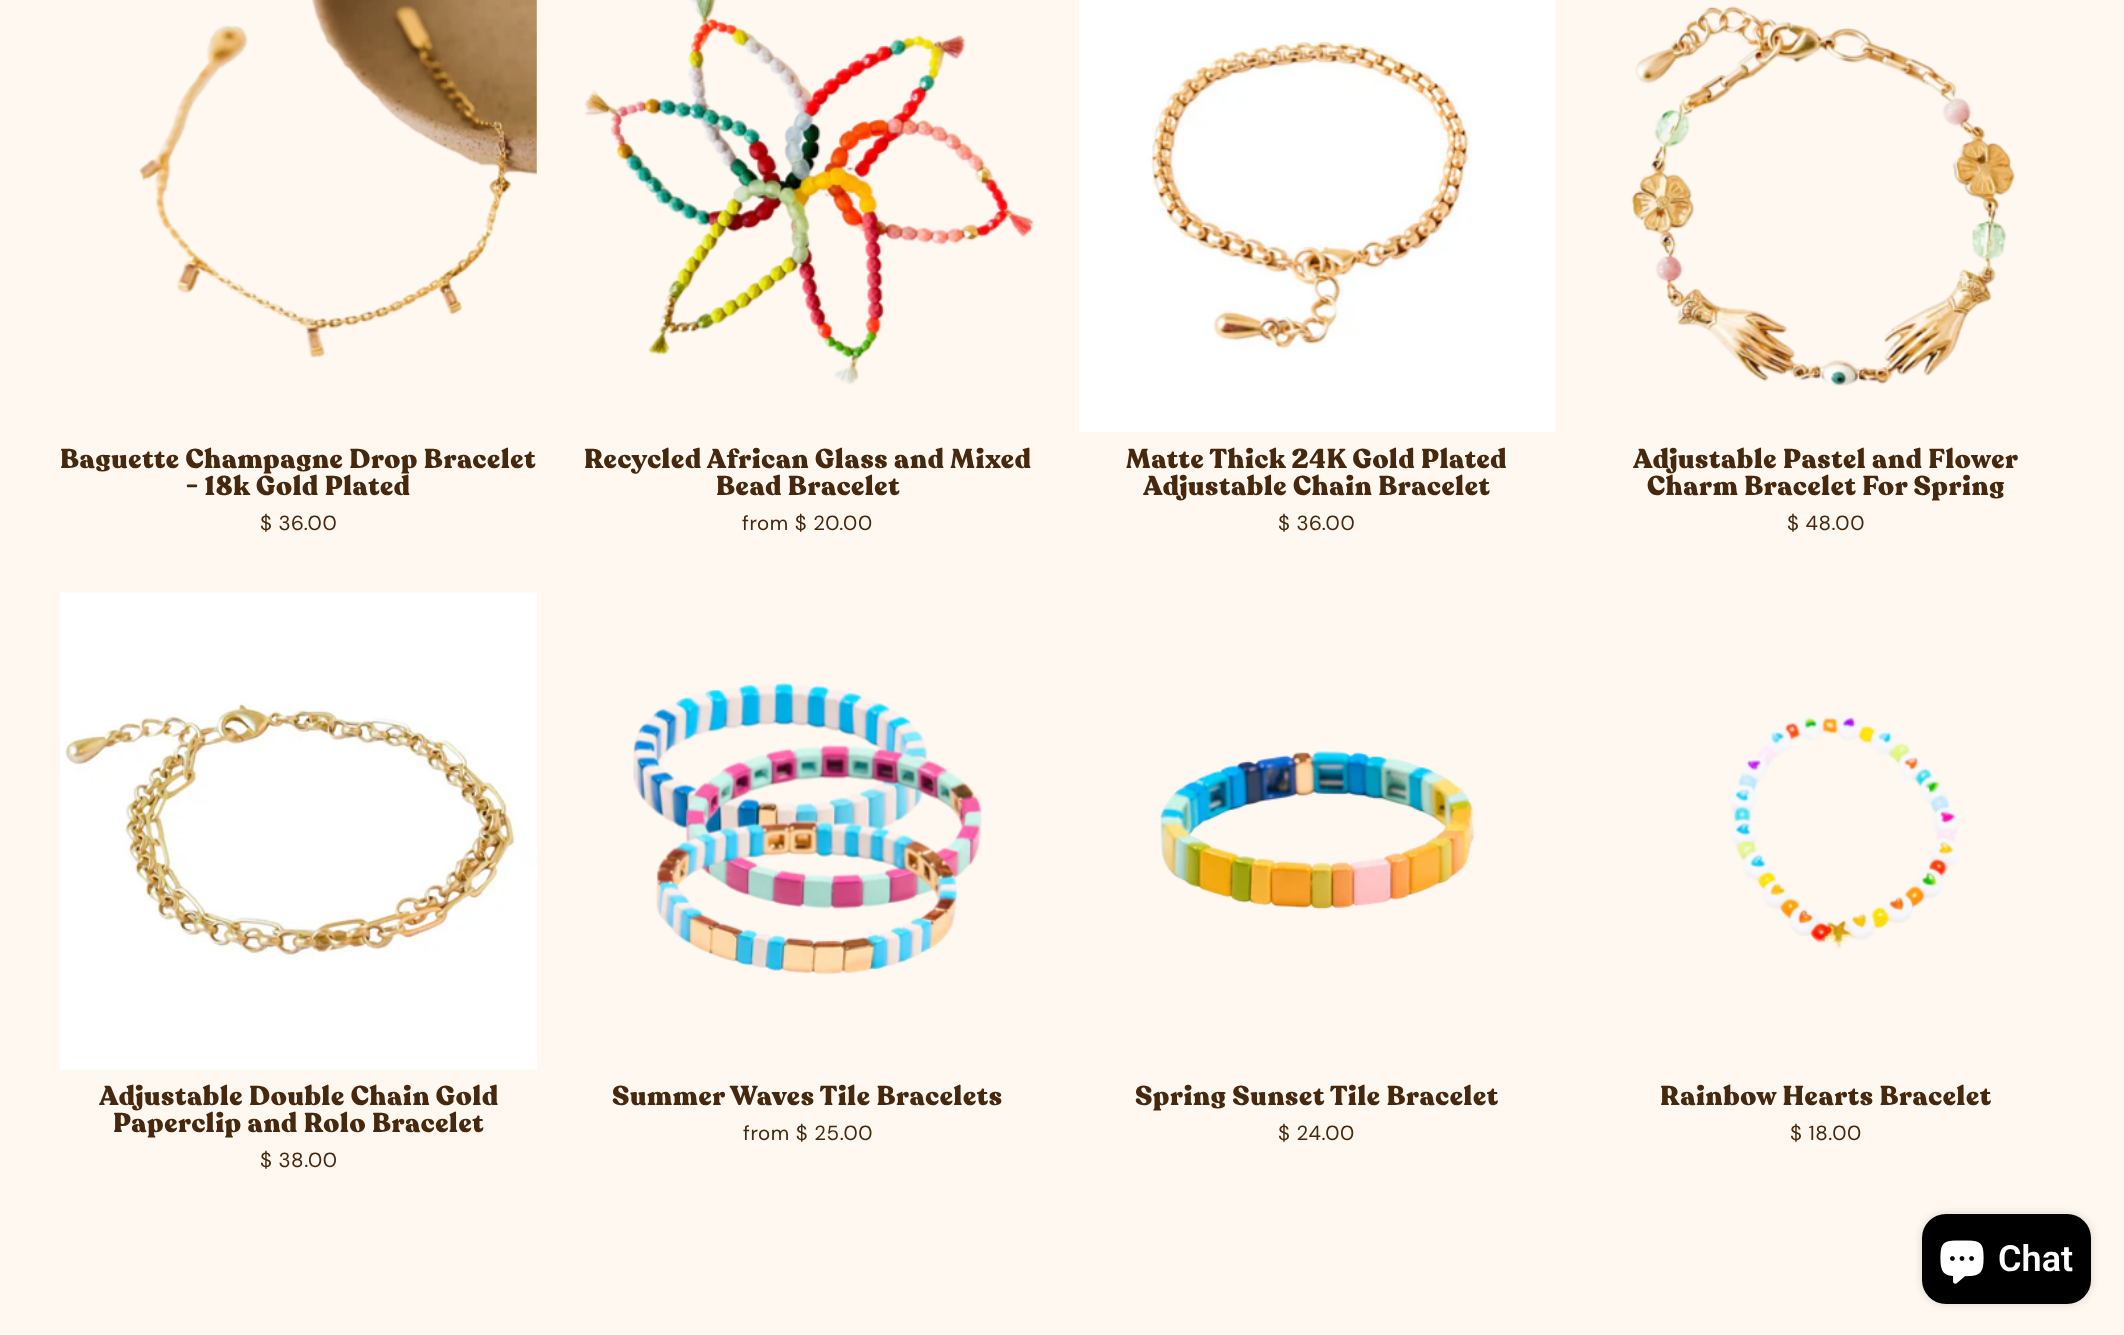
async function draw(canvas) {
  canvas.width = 2124;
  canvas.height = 1335;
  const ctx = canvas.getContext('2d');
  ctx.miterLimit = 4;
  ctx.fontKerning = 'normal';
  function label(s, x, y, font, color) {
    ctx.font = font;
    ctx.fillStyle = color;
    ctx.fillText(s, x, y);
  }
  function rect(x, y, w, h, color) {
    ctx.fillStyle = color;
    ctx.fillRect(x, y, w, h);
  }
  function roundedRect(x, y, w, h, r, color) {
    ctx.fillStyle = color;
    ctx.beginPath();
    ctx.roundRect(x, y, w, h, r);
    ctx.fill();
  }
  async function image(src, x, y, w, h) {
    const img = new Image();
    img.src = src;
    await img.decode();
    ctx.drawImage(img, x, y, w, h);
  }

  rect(0, 0, 2124, 1335, '#fff8f0');
  await image('assets/img1.png', 139, 0, 398, 358);
  ctx.letterSpacing = '0.7px';
  label('Baguette Champagne Drop Bracelet', 60, 468, '900 27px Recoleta', '#45280d');
  label('- 18k Gold Plated', 186, 495, '900 27px Recoleta', '#45280d');
  ctx.letterSpacing = '0.6px';
  label('$ 36.00', 260, 530, '20.5px DM Sans', '#45280d');
  await image('assets/img2.png', 584, 0, 450, 385);
  ctx.letterSpacing = '0.7px';
  label('Recycled African Glass and Mixed', 584, 468, '900 27px Recoleta', '#45280d');
  label('Bead Bracelet', 716, 495, '900 27px Recoleta', '#45280d');
  ctx.letterSpacing = '0.6px';
  label('from $ 20.00', 742, 530, '20.5px DM Sans', '#45280d');
  await image('assets/img3.png', 1079, 0, 477, 432);
  ctx.letterSpacing = '0.7px';
  label('Matte Thick 24K Gold Plated', 1126, 468, '900 27px Recoleta', '#45280d');
  label('Adjustable Chain Bracelet', 1143, 495, '900 27px Recoleta', '#45280d');
  ctx.letterSpacing = '0.6px';
  label('$ 36.00', 1278, 530, '20.5px DM Sans', '#45280d');
  await image('assets/img4.png', 1631, 6, 385, 380);
  ctx.letterSpacing = '0.7px';
  label('Adjustable Pastel and Flower', 1633, 468, '900 27px Recoleta', '#45280d');
  label('Charm Bracelet For Spring', 1647, 495, '900 27px Recoleta', '#45280d');
  ctx.letterSpacing = '0.6px';
  label('$ 48.00', 1787, 530, '20.5px DM Sans', '#45280d');
  await image('assets/img5.png', 60, 592, 477, 478);
  ctx.letterSpacing = '0.7px';
  label('Adjustable Double Chain Gold', 99, 1105, '900 27px Recoleta', '#45280d');
  label('Paperclip and Rolo Bracelet', 113, 1132, '900 27px Recoleta', '#45280d');
  ctx.letterSpacing = '0.6px';
  label('$ 38.00', 260, 1167, '20.5px DM Sans', '#45280d');
  await image('assets/img6.png', 633, 682, 349, 293);
  ctx.letterSpacing = '0.7px';
  label('Summer Waves Tile Bracelets', 612, 1105, '900 27px Recoleta', '#45280d');
  ctx.letterSpacing = '0.6px';
  label('from $ 25.00', 743, 1140, '20.5px DM Sans', '#45280d');
  await image('assets/img7.png', 1160, 751, 315, 159);
  ctx.letterSpacing = '0.7px';
  label('Spring Sunset Tile Bracelet', 1135, 1105, '900 27px Recoleta', '#45280d');
  ctx.letterSpacing = '0.6px';
  label('$ 24.00', 1278, 1140, '20.5px DM Sans', '#45280d');
  await image('assets/img8.png', 1730, 716, 230, 233);
  ctx.letterSpacing = '0.7px';
  label('Rainbow Hearts Bracelet', 1660, 1105, '900 27px Recoleta', '#45280d');
  ctx.letterSpacing = '0.6px';
  label('$ 18.00', 1790, 1140, '20.5px DM Sans', '#45280d');
  ctx.fillStyle = '#00000026';
  ctx.filter = 'blur(4px)';
  ctx.beginPath();
  ctx.roundRect(1922, 1214, 169, 90, 24);
  ctx.fill();
  ctx.filter = 'none';
  roundedRect(1922, 1214, 169, 90, 24, '#000');
  await image('assets/img9.png', 1940, 1240, 44, 44);
  ctx.letterSpacing = '0px';
  label('Chat', 1998, 1271, '600 36px Roboto', '#fff');
}

draw(document.querySelector('canvas'));
